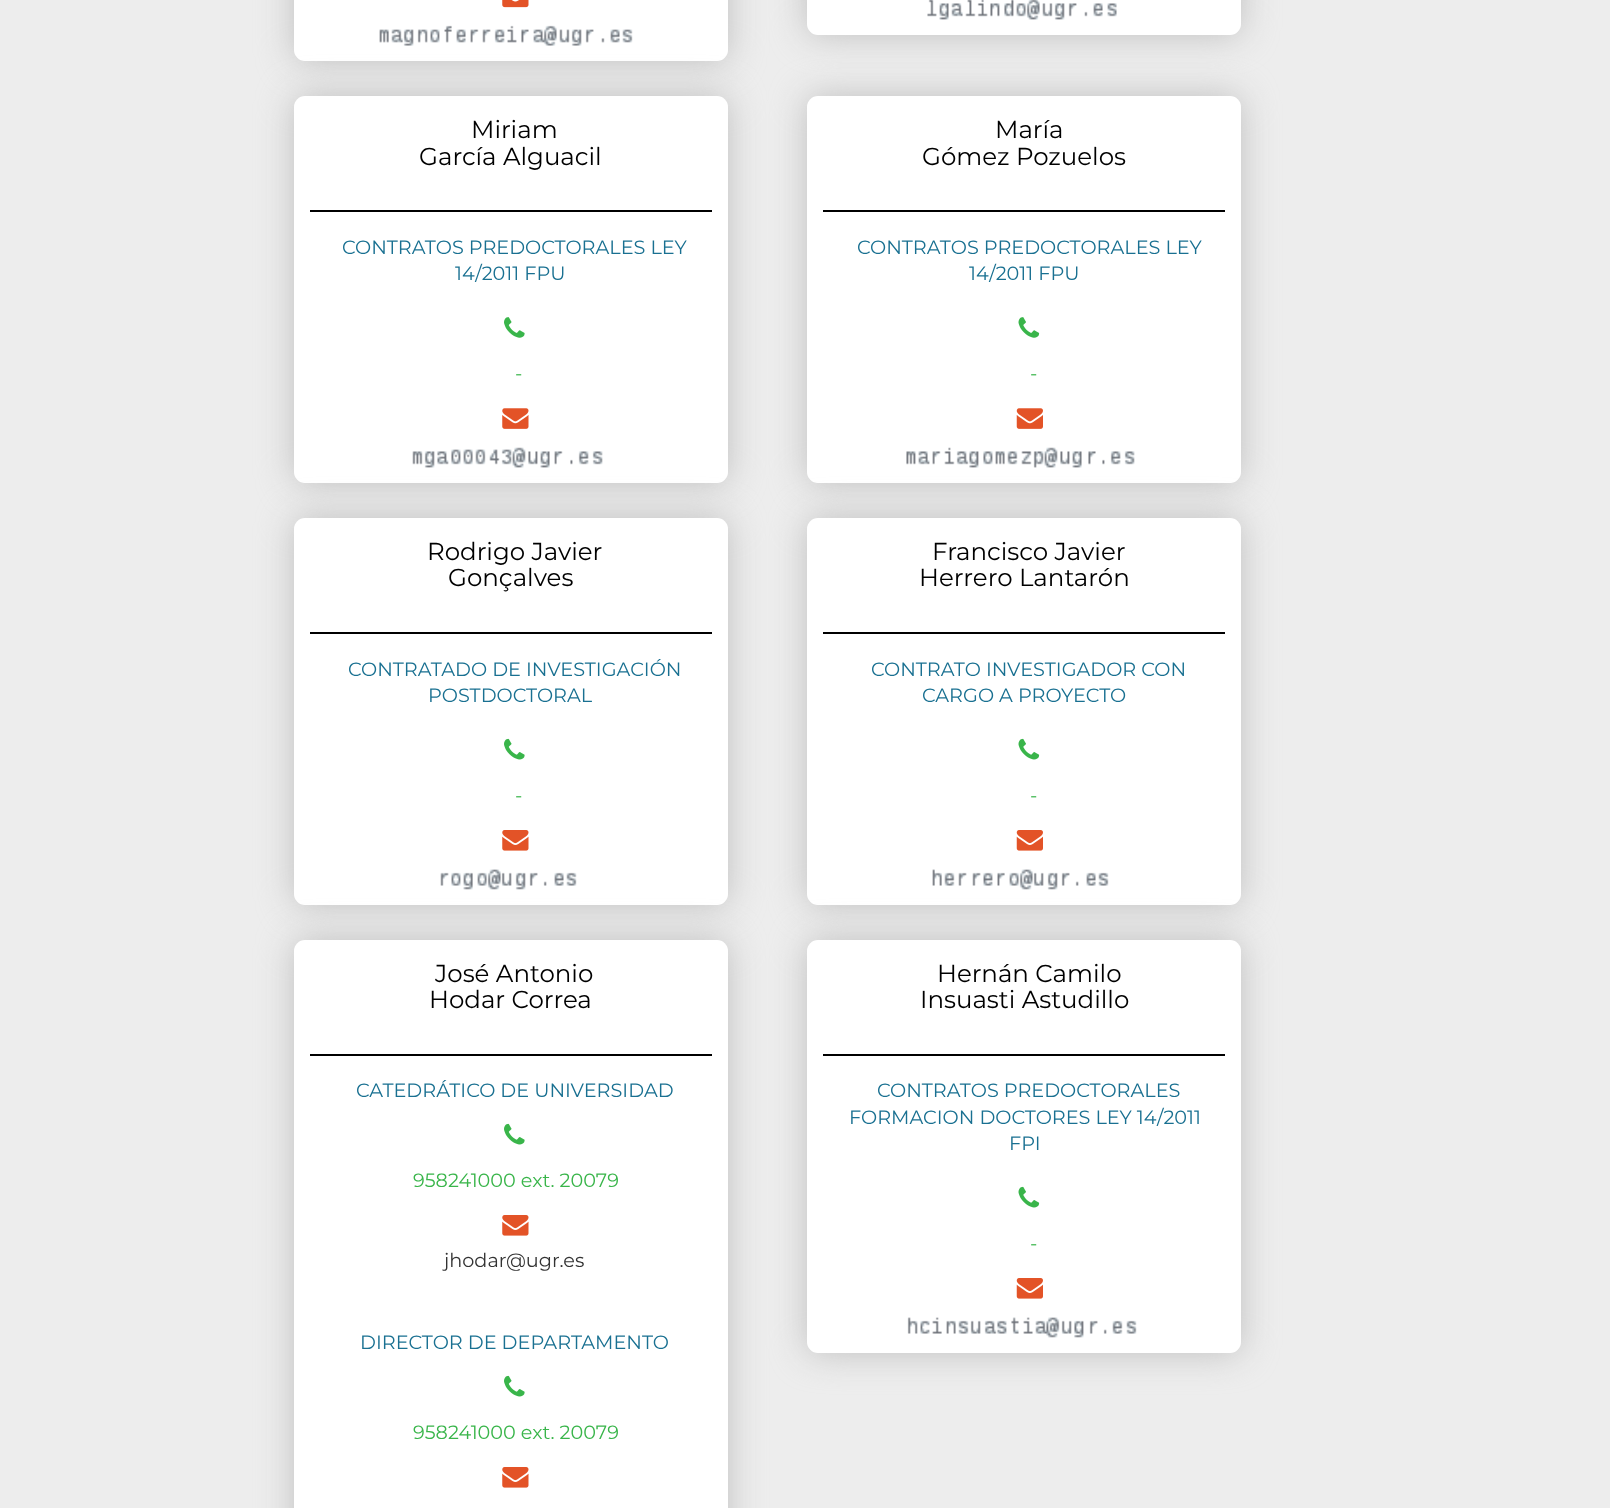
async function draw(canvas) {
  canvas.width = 1610;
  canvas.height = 1508;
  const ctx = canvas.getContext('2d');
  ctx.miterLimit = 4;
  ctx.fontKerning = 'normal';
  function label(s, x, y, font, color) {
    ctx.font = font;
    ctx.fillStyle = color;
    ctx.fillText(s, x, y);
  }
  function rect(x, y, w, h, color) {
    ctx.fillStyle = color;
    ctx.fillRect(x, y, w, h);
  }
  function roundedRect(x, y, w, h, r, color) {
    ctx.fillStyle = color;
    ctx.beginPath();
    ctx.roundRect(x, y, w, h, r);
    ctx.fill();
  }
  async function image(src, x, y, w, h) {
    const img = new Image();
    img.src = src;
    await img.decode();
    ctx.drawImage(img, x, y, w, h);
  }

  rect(0, 0, 1610, 1508, '#ededed');
  ctx.fillStyle = '#bfbfbf';
  ctx.filter = 'blur(17.5px)';
  ctx.beginPath();
  ctx.roundRect(294, -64, 434, 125, 11);
  ctx.fill();
  ctx.filter = 'none';
  roundedRect(294, -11, 434, 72, 11, '#fff');
  await image('assets/img1.png', 502, 0, 27, 8);
  await image('assets/img2.png', 379, 25, 254, 21);
  ctx.fillStyle = '#bfbfbf';
  ctx.filter = 'blur(17.5px)';
  ctx.beginPath();
  ctx.roundRect(807, -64, 434, 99, 11);
  ctx.fill();
  ctx.filter = 'none';
  roundedRect(807, -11, 434, 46, 11, '#fff');
  await image('assets/img3.png', 927, 0, 190, 20);
  ctx.fillStyle = '#bfbfbf';
  ctx.filter = 'blur(17.5px)';
  ctx.beginPath();
  ctx.roundRect(294, 96, 434, 387, 11);
  ctx.fill();
  ctx.filter = 'none';
  roundedRect(294, 96, 434, 387, 11, '#fff');
  rect(310, 210, 402, 2, '#000');
  label('Miriam', 471, 138, '100 24.5px Montserrat', '#000');
  label('García Alguacil', 419, 165, '100 24.5px Montserrat', '#000');
  label('CONTRATOS PREDOCTORALES LEY', 342, 254, '100 19.25px Montserrat', '#197091');
  label('14/2011 FPU', 455, 280, '100 19.25px Montserrat', '#197091');
  await image('assets/img4.png', 504, 317, 21, 21);
  label('-', 515, 380, '100 19.25px Montserrat', '#39b54a');
  await image('assets/img5.png', 502, 408, 27, 21);
  await image('assets/img6.png', 412, 447, 191, 21);
  ctx.fillStyle = '#bfbfbf';
  ctx.filter = 'blur(17.5px)';
  ctx.beginPath();
  ctx.roundRect(807, 96, 434, 387, 11);
  ctx.fill();
  ctx.filter = 'none';
  roundedRect(807, 96, 434, 387, 11, '#fff');
  rect(823, 210, 402, 2, '#000');
  label('María', 995, 138, '100 24.5px Montserrat', '#000');
  label('Gómez Pozuelos', 922, 165, '100 24.5px Montserrat', '#000');
  label('CONTRATOS PREDOCTORALES LEY', 857, 254, '100 19.25px Montserrat', '#197091');
  label('14/2011 FPU', 969, 280, '100 19.25px Montserrat', '#197091');
  await image('assets/img7.png', 1018, 317, 22, 21);
  label('-', 1030, 380, '100 19.25px Montserrat', '#39b54a');
  await image('assets/img8.png', 1016, 408, 27, 21);
  await image('assets/img9.png', 906, 447, 229, 21);
  ctx.fillStyle = '#bfbfbf';
  ctx.filter = 'blur(17.5px)';
  ctx.beginPath();
  ctx.roundRect(294, 518, 434, 387, 11);
  ctx.fill();
  ctx.filter = 'none';
  roundedRect(294, 518, 434, 387, 11, '#fff');
  rect(310, 632, 402, 2, '#000');
  label('Rodrigo Javier', 427, 560, '100 24.5px Montserrat', '#000');
  label('Gonçalves', 448, 586, '100 24.5px Montserrat', '#000');
  label('CONTRATADO DE INVESTIGACIÓN', 348, 676, '100 19.25px Montserrat', '#197091');
  label('POSTDOCTORAL', 428, 702, '100 19.25px Montserrat', '#197091');
  await image('assets/img10.png', 504, 738, 21, 22);
  label('-', 515, 802, '100 19.25px Montserrat', '#39b54a');
  await image('assets/img11.png', 502, 830, 27, 21);
  await image('assets/img12.png', 440, 869, 137, 21);
  ctx.fillStyle = '#bfbfbf';
  ctx.filter = 'blur(17.5px)';
  ctx.beginPath();
  ctx.roundRect(807, 518, 434, 387, 11);
  ctx.fill();
  ctx.filter = 'none';
  roundedRect(807, 518, 434, 387, 11, '#fff');
  rect(823, 632, 402, 2, '#000');
  label('Francisco Javier', 932, 560, '100 24.5px Montserrat', '#000');
  label('Herrero Lantarón', 919, 586, '100 24.5px Montserrat', '#000');
  label('CONTRATO INVESTIGADOR CON', 871, 676, '100 19.25px Montserrat', '#197091');
  label('CARGO A PROYECTO', 922, 702, '100 19.25px Montserrat', '#197091');
  await image('assets/img13.png', 1018, 738, 22, 22);
  label('-', 1030, 802, '100 19.25px Montserrat', '#39b54a');
  await image('assets/img14.png', 1016, 830, 27, 21);
  await image('assets/img15.png', 932, 869, 177, 21);
  ctx.fillStyle = '#bfbfbf';
  ctx.filter = 'blur(17.5px)';
  ctx.beginPath();
  ctx.roundRect(294, 940, 434, 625, 11);
  ctx.fill();
  ctx.filter = 'none';
  roundedRect(294, 940, 434, 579, 11, '#fff');
  rect(310, 1054, 402, 2, '#000');
  label('José Antonio', 435, 982, '100 24.5px Montserrat', '#000');
  label('Hodar Correa', 429, 1008, '100 24.5px Montserrat', '#000');
  label('CATEDRÁTICO DE UNIVERSIDAD', 356, 1097, '100 19.25px Montserrat', '#197091');
  await image('assets/img10.png', 504, 1123, 21, 22);
  label('958241000 ext. 20079', 413, 1187, '100 19.25px Montserrat', '#39b54a');
  await image('assets/img11.png', 502, 1215, 27, 21);
  label('jhodar@ugr.es', 444, 1267, '100 19.25px Montserrat', '#333');
  label('DIRECTOR DE DEPARTAMENTO', 360, 1349, '100 19.25px Montserrat', '#197091');
  await image('assets/img10.png', 504, 1375, 21, 22);
  label('958241000 ext. 20079', 413, 1439, '100 19.25px Montserrat', '#39b54a');
  await image('assets/img11.png', 502, 1467, 27, 21);
  ctx.fillStyle = '#bfbfbf';
  ctx.filter = 'blur(17.5px)';
  ctx.beginPath();
  ctx.roundRect(807, 940, 434, 413, 11);
  ctx.fill();
  ctx.filter = 'none';
  roundedRect(807, 940, 434, 413, 11, '#fff');
  rect(823, 1054, 402, 2, '#000');
  label('Hernán Camilo', 937, 982, '100 24.5px Montserrat', '#000');
  label('Insuasti Astudillo', 920, 1008, '100 24.5px Montserrat', '#000');
  label('CONTRATOS PREDOCTORALES', 877, 1097, '100 19.25px Montserrat', '#197091');
  label('FORMACION DOCTORES LEY 14/2011', 849, 1124, '100 19.25px Montserrat', '#197091');
  label('FPI', 1009, 1150, '100 19.25px Montserrat', '#197091');
  await image('assets/img13.png', 1018, 1186, 22, 22);
  label('-', 1030, 1250, '100 19.25px Montserrat', '#39b54a');
  await image('assets/img14.png', 1016, 1278, 27, 21);
  await image('assets/img16.png', 907, 1317, 230, 21);
}

draw(document.querySelector('canvas'));
